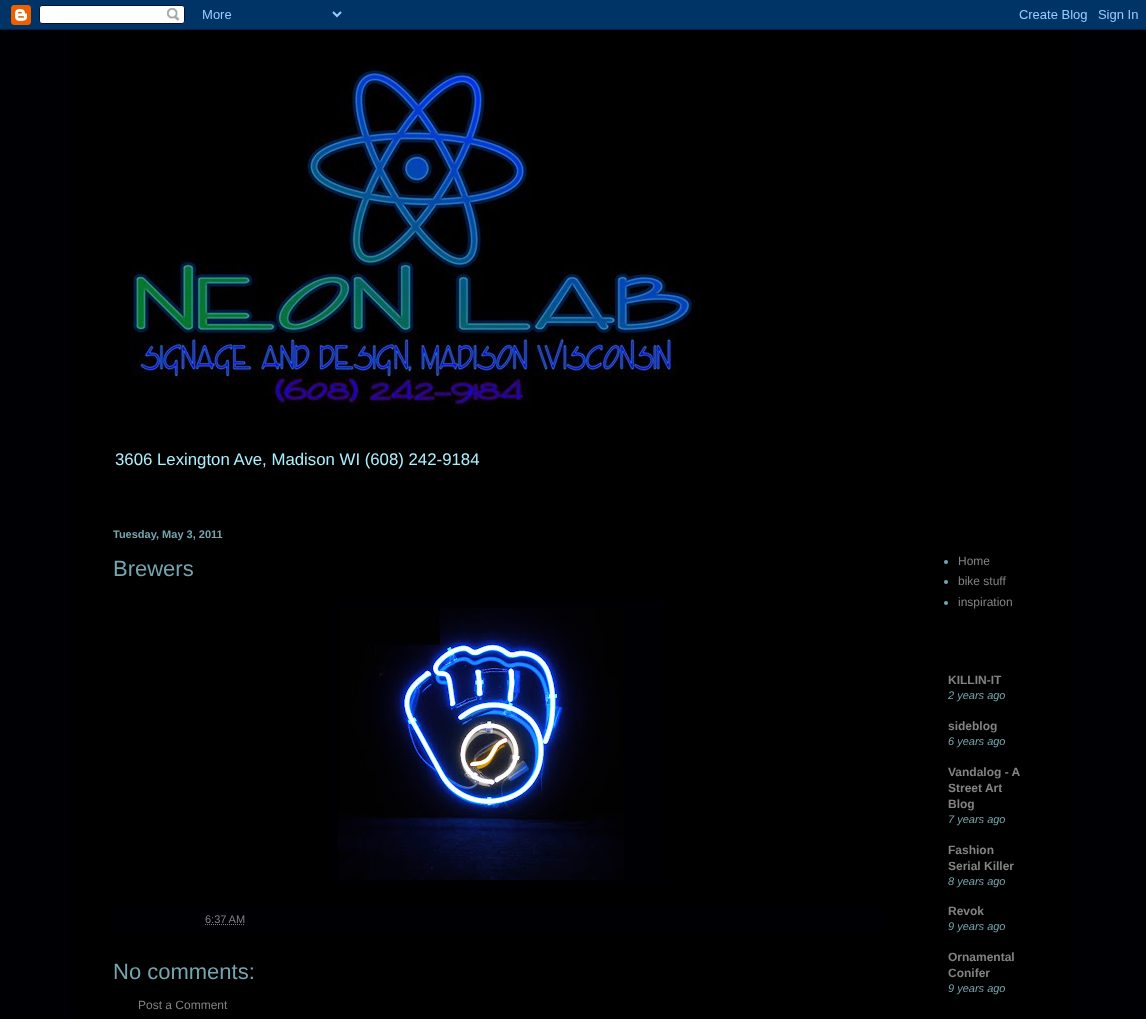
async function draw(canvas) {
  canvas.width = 1146;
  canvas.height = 1019;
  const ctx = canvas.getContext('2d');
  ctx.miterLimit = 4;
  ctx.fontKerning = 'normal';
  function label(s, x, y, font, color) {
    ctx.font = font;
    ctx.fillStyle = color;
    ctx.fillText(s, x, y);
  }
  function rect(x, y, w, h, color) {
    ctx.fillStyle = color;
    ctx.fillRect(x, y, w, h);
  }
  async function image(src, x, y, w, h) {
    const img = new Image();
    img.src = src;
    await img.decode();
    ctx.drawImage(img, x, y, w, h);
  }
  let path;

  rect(0, 0, 1146, 1019, '#000004');
  await image('assets/img1.png', 0, 0, 1146, 30);
  rect(73, 30, 1000, 989, '#000');
  await image('assets/img2.png', 131, 65, 564, 344);
  label('3606 Lexington Ave, Madison WI (608) 242-9184', 115, 465, '16.8px Liberation Sans', '#abf0ff');
  rect(113, 497, 920, 1, '#000004');
  rect(913, 528, 1, 491, '#000004');
  label('Tuesday, May 3, 2011', 113, 538, 'bold 11px Liberation Sans', '#76a5af');
  label('Brewers', 113, 576, '22px Liberation Sans', '#76a5af');
  rect(332, 599, 332, 287, '#000004');
  await image('assets/img3.png', 338, 608, 286, 272);
  rect(111, 906, 774, 28, '#000004');
  label('6:37 AM', 205, 923, '11px Liberation Sans', '#838383');
  path = new Path2D('M205 924.5H244.5');
  ctx.strokeStyle = '#838383';
  ctx.setLineDash([1, 1]);
  ctx.stroke(path);
  label('No comments:', 113, 979, '22px Liberation Sans', '#76a5af');
  label('Post a Comment', 138, 1009, '12px Liberation Sans', '#838383');
  ctx.fillStyle = '#76a5af';
  ctx.beginPath();
  ctx.arc(946, 562, 2, 0, 2 * Math.PI);
  ctx.fill();
  label('Home', 958, 565, '12px Liberation Sans', '#838383');
  ctx.fillStyle = '#76a5af';
  ctx.beginPath();
  ctx.arc(946, 582, 2, 0, 2 * Math.PI);
  ctx.fill();
  label('bike stuff', 958, 585, '12px Liberation Sans', '#838383');
  ctx.fillStyle = '#76a5af';
  ctx.beginPath();
  ctx.arc(946, 603, 2, 0, 2 * Math.PI);
  ctx.fill();
  label('inspiration', 958, 606, '12px Liberation Sans', '#838383');
  label('KILLIN-IT', 948, 684, 'bold 12px Liberation Sans', '#838383');
  label('2 years ago', 948, 699, 'italic 11px Liberation Sans', '#76a5af');
  label('sideblog', 948, 730, 'bold 12px Liberation Sans', '#838383');
  label('6 years ago', 948, 745, 'italic 11px Liberation Sans', '#76a5af');
  label('Vandalog - A', 948, 776, 'bold 12px Liberation Sans', '#838383');
  label('Street Art', 948, 792, 'bold 12px Liberation Sans', '#838383');
  label('Blog', 948, 808, 'bold 12px Liberation Sans', '#838383');
  label('7 years ago', 948, 823, 'italic 11px Liberation Sans', '#76a5af');
  label('Fashion', 948, 854, 'bold 12px Liberation Sans', '#838383');
  label('Serial Killer', 948, 870, 'bold 12px Liberation Sans', '#838383');
  label('8 years ago', 948, 885, 'italic 11px Liberation Sans', '#76a5af');
  label('Revok', 948, 915, 'bold 12px Liberation Sans', '#838383');
  label('9 years ago', 948, 930, 'italic 11px Liberation Sans', '#76a5af');
  label('Ornamental', 948, 961, 'bold 12px Liberation Sans', '#838383');
  label('Conifer', 948, 977, 'bold 12px Liberation Sans', '#838383');
  label('9 years ago', 948, 992, 'italic 11px Liberation Sans', '#76a5af');
}

draw(document.querySelector('canvas'));
